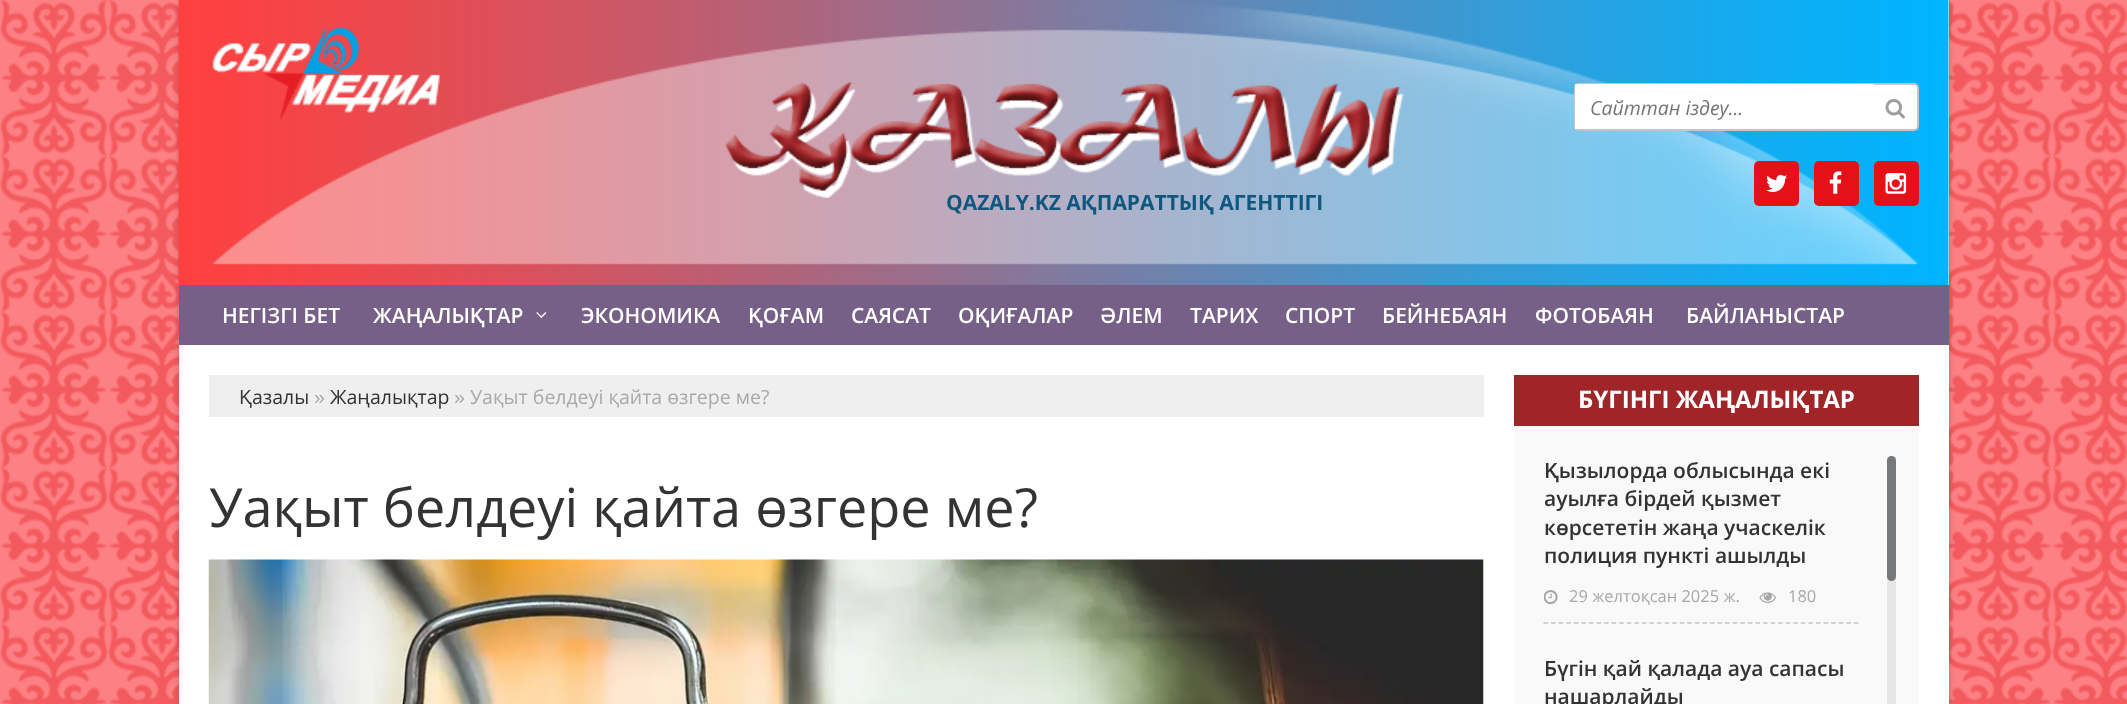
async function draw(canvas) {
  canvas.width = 2127;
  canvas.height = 704;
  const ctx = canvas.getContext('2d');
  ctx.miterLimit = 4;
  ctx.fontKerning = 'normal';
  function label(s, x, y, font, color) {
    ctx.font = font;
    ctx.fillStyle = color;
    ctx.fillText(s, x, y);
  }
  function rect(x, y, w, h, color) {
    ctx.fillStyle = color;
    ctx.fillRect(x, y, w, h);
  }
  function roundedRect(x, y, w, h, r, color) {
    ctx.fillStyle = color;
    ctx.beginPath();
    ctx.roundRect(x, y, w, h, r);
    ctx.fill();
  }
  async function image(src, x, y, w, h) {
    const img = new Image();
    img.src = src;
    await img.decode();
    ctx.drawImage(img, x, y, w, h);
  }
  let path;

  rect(0, 0, 2127, 704, '#fd8084');
  await image('assets/img1.png', 0, 0, 2127, 704);
  ctx.fillStyle = '#00000033';
  ctx.filter = 'blur(3px)';
  ctx.beginPath();
  ctx.rect(179, 3, 1770, 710);
  ctx.fill();
  ctx.filter = 'none';
  rect(179, 0, 1770, 704, '#fff');
  await image('assets/img2.png', 178, 0, 1771, 285);
  ctx.beginPath();
  ctx.roundRect(1575, 84, 343, 46, 4);
  ctx.fill();
  ctx.strokeStyle = '#c5c5c5';
  ctx.lineWidth = 2;
  ctx.stroke();
  rect(1575, 84, 299, 45, '#fff');
  label('Сайттан іздеу...', 1590, 115, 'italic 19.5px Open Sans', '#757575');
  await image('assets/img3.png', 1885, 99, 20, 20);
  roundedRect(1754, 161, 45, 45, 5, '#e51118');
  await image('assets/img4.png', 1766, 174, 21, 18);
  roundedRect(1814, 161, 45, 45, 5, '#e51118');
  await image('assets/img5.png', 1829, 171, 13, 23);
  roundedRect(1874, 161, 45, 45, 5, '#e51118');
  await image('assets/img6.png', 1885, 173, 22, 21);
  await image('assets/img7.png', 725, 82, 679, 116);
  label('QAZALY.KZ АҚПАРАТТЫҚ АГЕНТТІГІ', 946, 210, 'bold 21px Open Sans', '#10577f');
  rect(179, 285, 1770, 60, '#776087');
  label('НЕГІЗГІ БЕТ', 222, 323, '600 21px Open Sans', '#fff');
  label('ЖАҢАЛЫҚТАР', 373, 323, '600 21px Open Sans', '#fff');
  await image('assets/img8.png', 536, 312, 11, 6);
  label('ЭКОНОМИКА', 581, 323, '600 21px Open Sans', '#fff');
  label('ҚОҒАМ', 748, 323, '600 21px Open Sans', '#fff');
  label('САЯСАТ', 851, 323, '600 21px Open Sans', '#fff');
  label('ОҚИҒАЛАР', 958, 323, '600 21px Open Sans', '#fff');
  label('ӘЛЕМ', 1100, 323, '600 21px Open Sans', '#fff');
  label('ТАРИХ', 1190, 323, '600 21px Open Sans', '#fff');
  label('СПОРТ', 1285, 323, '600 21px Open Sans', '#fff');
  label('БЕЙНЕБАЯН', 1382, 323, '600 21px Open Sans', '#fff');
  label('ФОТОБАЯН', 1535, 323, '600 21px Open Sans', '#fff');
  label('БАЙЛАНЫСТАР', 1686, 323, '600 21px Open Sans', '#fff');
  rect(209, 375, 1275, 42, '#efefef');
  label('Қазалы', 239, 404, '19.5px Open Sans', '#333');
  label('»', 314, 404, '19.5px Liberation Sans', '#a9a9a9');
  label('Жаңалықтар', 330, 404, '19.5px Open Sans', '#333');
  label('»', 454, 404, '19.5px Liberation Sans', '#a9a9a9');
  label('Уақыт белдеуі қайта өзгере ме?', 470, 404, '19.5px Open Sans', '#a9a9a9');
  label('Уақыт белдеуі қайта өзгере ме?', 209, 527, '54px Open Sans', '#333');
  await image('assets/img9.png', 208, 559, 1276, 145);
  rect(1514, 426, 405, 278, '#f9f9f9');
  rect(1514, 375, 405, 51, '#9f2528');
  label('БҮГІНГI ЖАҢАЛЫҚТАР', 1578, 408, 'bold 24px Open Sans', '#fff');
  path = new Path2D('M1543.5 623H1858.5');
  ctx.strokeStyle = '#c4c4c4';
  ctx.lineWidth = 1.5;
  ctx.setLineDash([4.5, 3.07]);
  ctx.stroke(path);
  label('Қызылорда облысында екі', 1544, 478, '600 21px Open Sans', '#333');
  label('ауылға бірдей қызмет', 1544, 506, '600 21px Open Sans', '#333');
  label('көрсететін жаңа учаскелік', 1544, 535, '600 21px Open Sans', '#333');
  label('полиция пункті ашылды', 1544, 563, '600 21px Open Sans', '#333');
  await image('assets/img10.png', 1544, 590, 14, 15);
  label('29 желтоқсан 2025 ж.', 1569, 602, '16.5px Open Sans', '#a9a9a9');
  await image('assets/img11.png', 1759, 592, 17, 11);
  label('180', 1788, 602, '16.5px Open Sans', '#a9a9a9');
  label('Бүгін қай қалада ауа сапасы', 1544, 676, '600 21px Open Sans', '#333');
  label('нашарлайды', 1544, 704, '600 21px Open Sans', '#333');
  roundedRect(1887, 456, 9, 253, 4.5, '#e6e6e6');
  roundedRect(1887, 456, 9, 125, 4.5, '#77787a');
}

draw(document.querySelector('canvas'));
